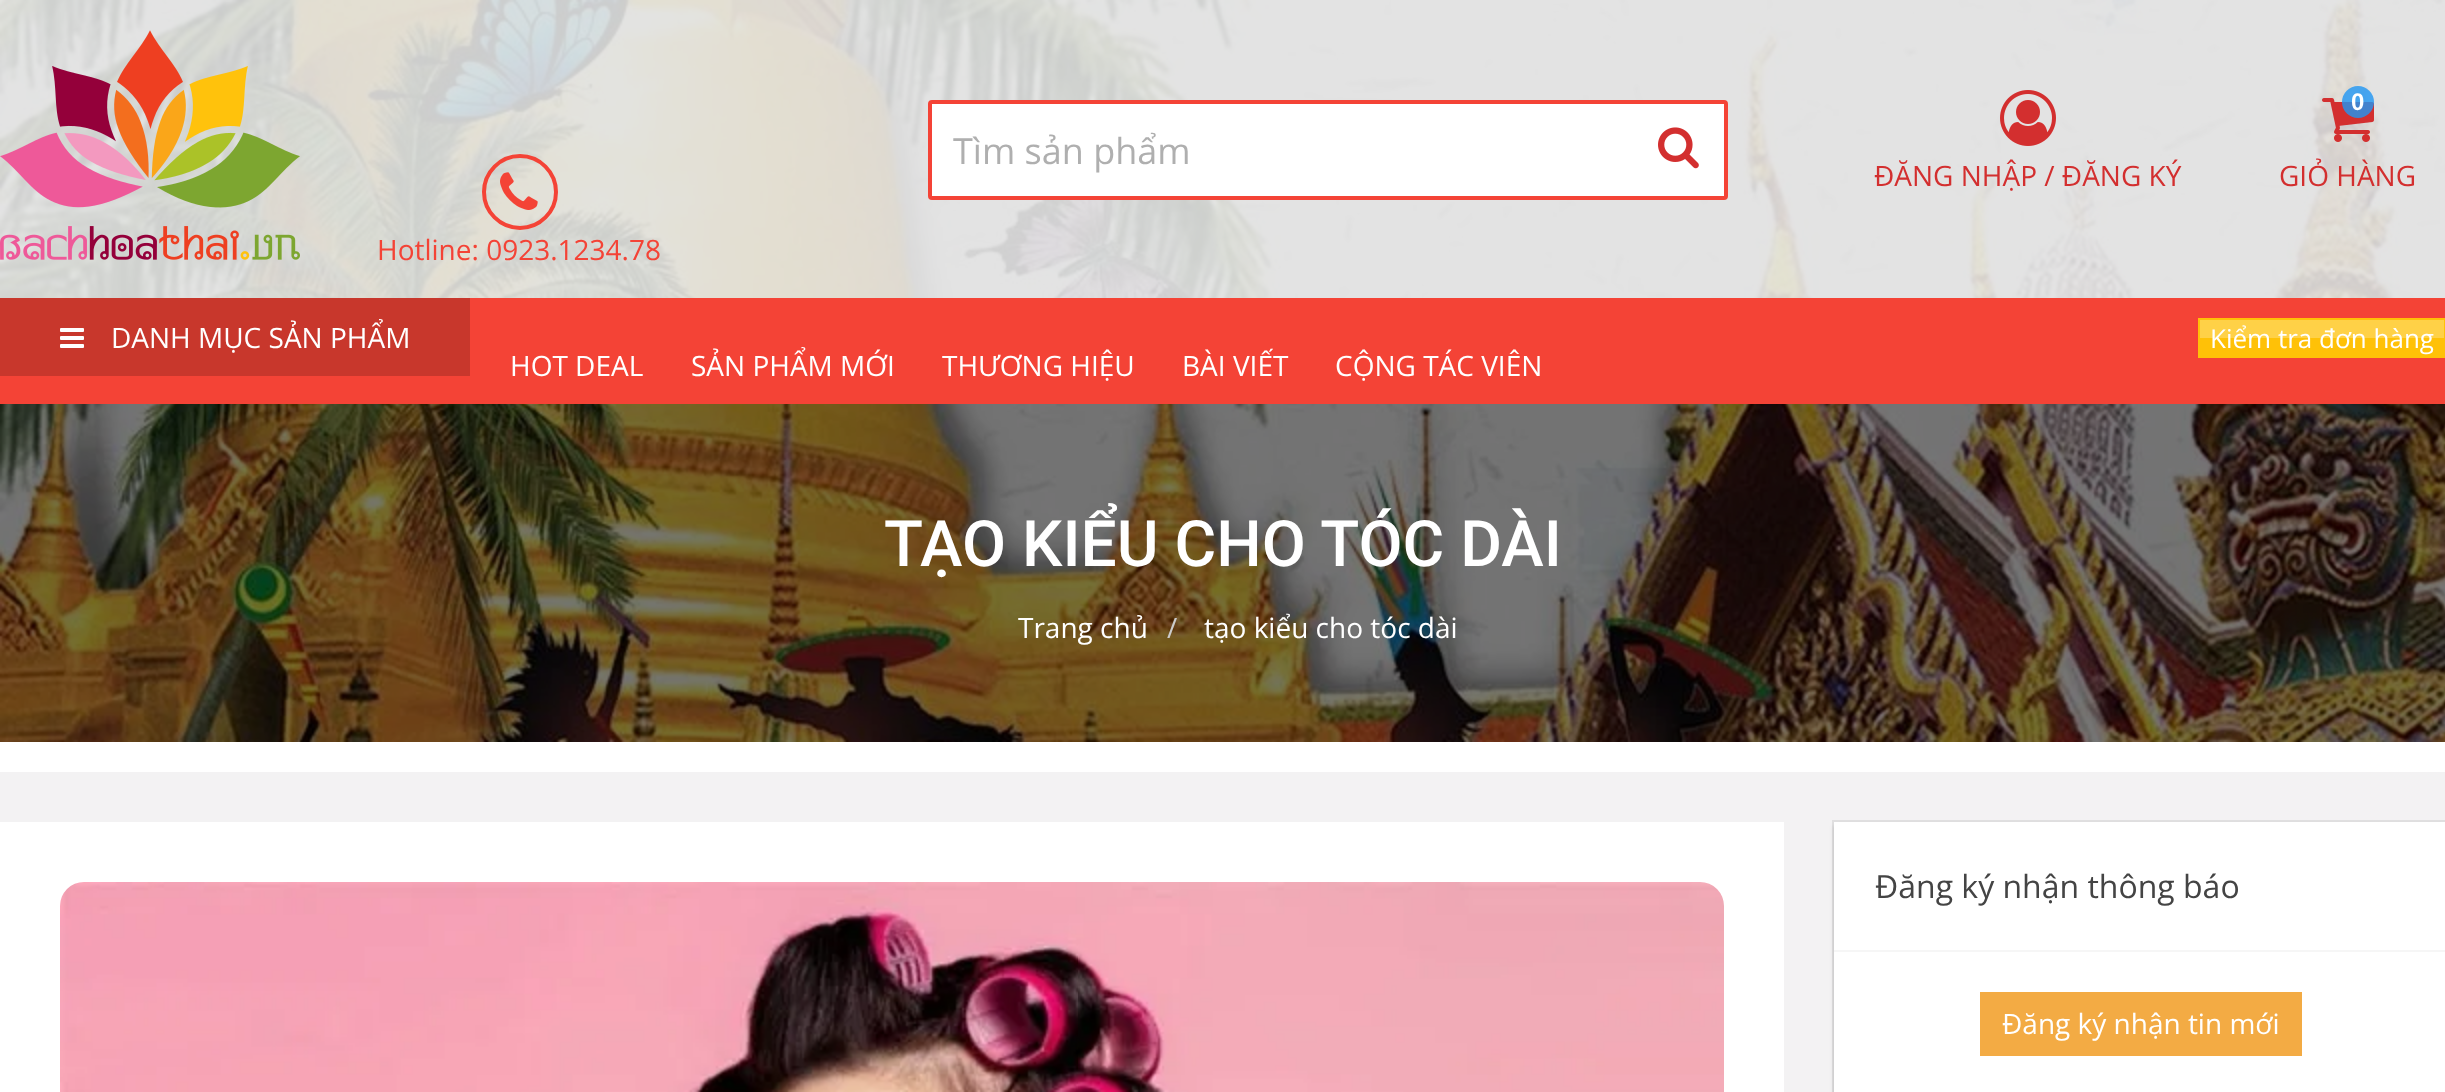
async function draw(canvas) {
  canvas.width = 2445;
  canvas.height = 1092;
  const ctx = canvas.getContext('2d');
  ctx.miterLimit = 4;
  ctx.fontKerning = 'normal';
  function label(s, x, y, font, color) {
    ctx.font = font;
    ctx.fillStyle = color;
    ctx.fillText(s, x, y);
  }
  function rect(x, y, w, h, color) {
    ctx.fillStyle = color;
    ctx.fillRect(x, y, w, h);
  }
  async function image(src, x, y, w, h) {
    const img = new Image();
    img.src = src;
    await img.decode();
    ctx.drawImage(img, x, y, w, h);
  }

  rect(0, 0, 2445, 1092, '#fff');
  await image('assets/img7.png', 0, 0, 2445, 742);
  rect(0, 0, 2445, 298, '#ffffffcc');
  await image('assets/img1.png', 0, 30, 300, 230);
  ctx.fillStyle = '#fff';
  ctx.beginPath();
  ctx.roundRect(930, 102, 796, 96, 2);
  ctx.fill();
  ctx.strokeStyle = '#f44336';
  ctx.lineWidth = 4;
  ctx.stroke();
  label('Tìm sản phẩm', 953, 164, '36px Open Sans', '#afafaf');
  await image('assets/img2.png', 1658, 127, 41, 42);
  await image('assets/img3.png', 2000, 90, 56, 56);
  label('ĐĂNG NHẬP / ĐĂNG KÝ', 1874, 186, '28px Open Sans', '#d32f2f');
  await image('assets/img4.png', 2322, 98, 52, 44);
  ctx.fillStyle = '#2196f3cf';
  ctx.beginPath();
  ctx.arc(2358, 102, 16, 0, 2 * Math.PI);
  ctx.fill();
  label('0', 2351, 110, 'bold 24px Liberation Sans', '#fff');
  label('GIỎ HÀNG', 2279, 186, '28px Open Sans', '#d32f2f');
  ctx.beginPath();
  ctx.arc(520, 192, 36, 0, 2 * Math.PI);
  ctx.stroke();
  await image('assets/img5.png', 500, 172, 38, 38);
  label('Hotline: 0923.1234.78', 377, 260, '28px Open Sans', '#f44336');
  rect(0, 298, 2445, 106, '#f44336');
  rect(0, 298, 470, 78, '#c8372c');
  await image('assets/img6.png', 60, 328, 24, 20);
  label('DANH MỤC SẢN PHẨM', 111, 348, '28px Open Sans', '#fff');
  rect(2198, 318, 247, 40, '#ffc107');
  rect(2200, 320, 244, 18, '#ffd147');
  label('Kiểm tra đơn hàng', 2210, 348, '26px Open Sans', '#fff');
  label('HOT DEAL', 510, 376, '28px Open Sans', '#fff');
  label('SẢN PHẨM MỚI', 691, 376, '28px Open Sans', '#fff');
  label('THƯƠNG HIỆU', 942, 376, '28px Open Sans', '#fff');
  label('BÀI VIẾT', 1182, 376, '28px Open Sans', '#fff');
  label('CỘNG TÁC VIÊN', 1335, 376, '28px Open Sans', '#fff');
  label('TẠO KIỂU CHO TÓC DÀI', 884, 566, '500 64px Roboto', '#fff');
  label('Trang chủ', 1018, 638, '28px Open Sans', '#fff');
  label('/', 1167, 638, '28px Open Sans', '#ccc');
  label('tạo kiểu cho tóc dài', 1204, 638, '28px Open Sans', '#fff');
  rect(0, 772, 2445, 320, '#f3f2f3');
  rect(0, 822, 1784, 270, '#fff');
  await image('assets/img8.png', 60, 882, 1664, 210);
  ctx.strokeStyle = '#e0dfe0';
  ctx.lineWidth = 2;
  ctx.strokeRect(1833, 821, 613, 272);
  ctx.fillStyle = '#00000029';
  ctx.filter = 'blur(2px)';
  ctx.beginPath();
  ctx.rect(1834, 826, 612, 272);
  ctx.fill();
  ctx.filter = 'none';
  rect(1834, 822, 611, 270, '#fff');
  rect(1834, 950, 611, 2, '#f6f6f6');
  label('Đăng ký nhận thông báo', 1875, 898, '32px Open Sans', '#444');
  rect(1980, 992, 322, 64, '#f3ab44');
  label('Đăng ký nhận tin mới', 2002, 1034, '28px Open Sans', '#fff');
}

draw(document.querySelector('canvas'));
